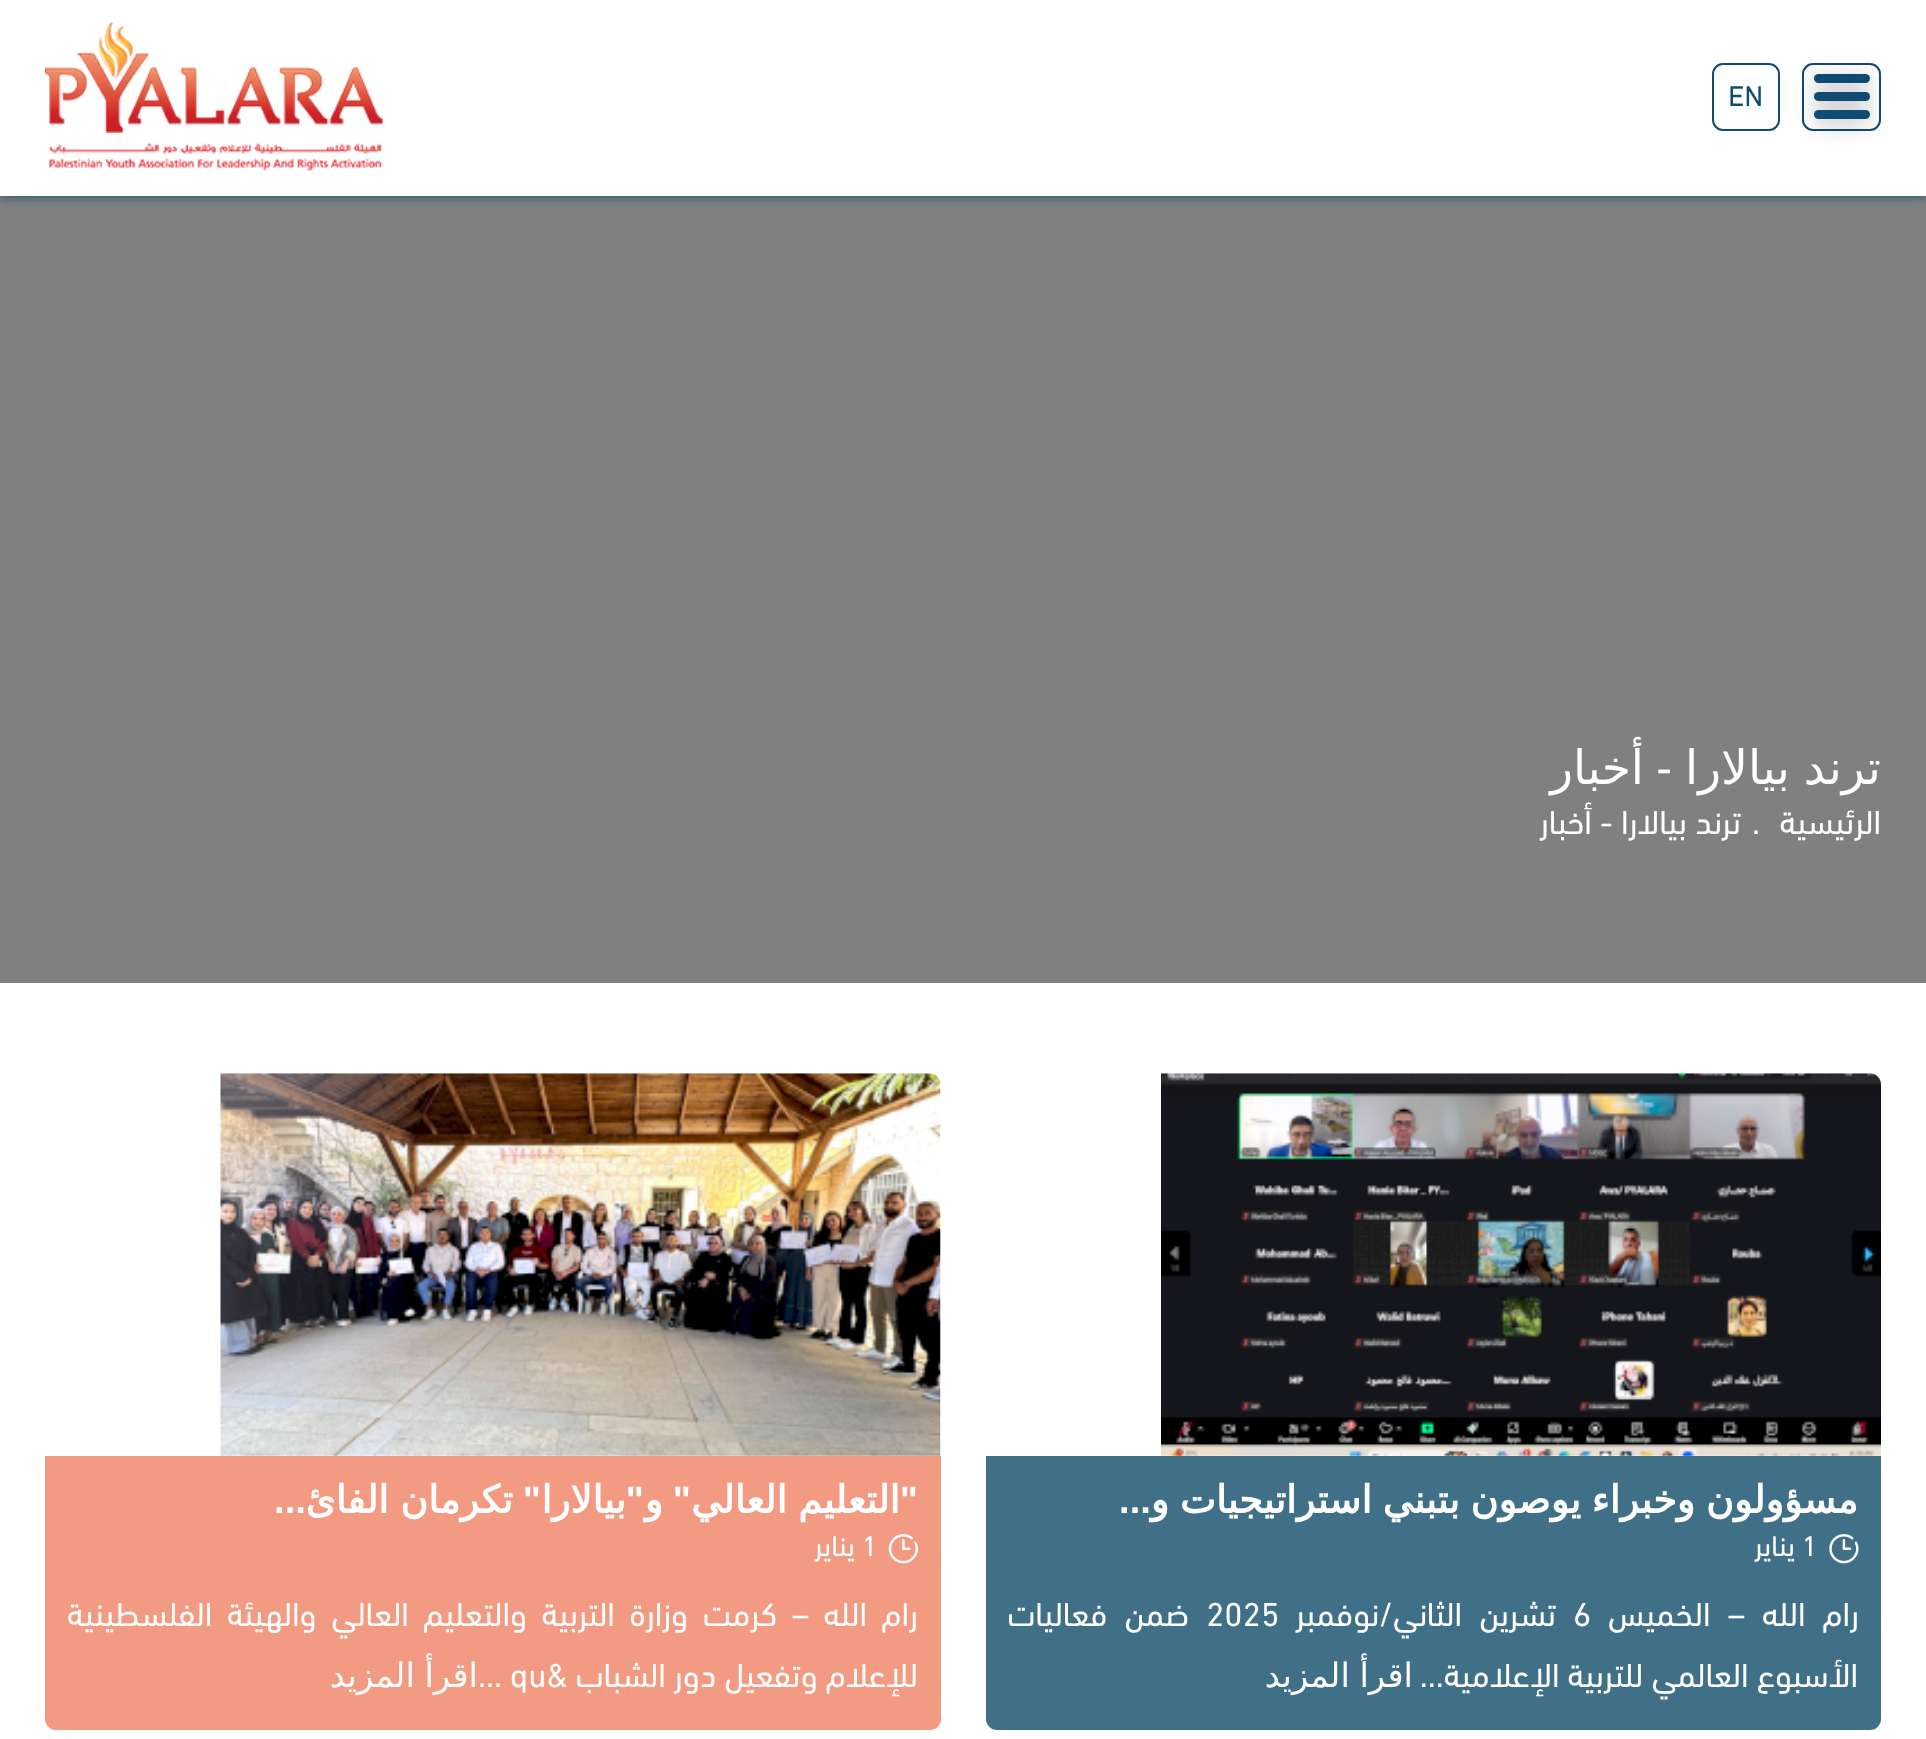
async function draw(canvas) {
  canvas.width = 1926;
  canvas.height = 1739;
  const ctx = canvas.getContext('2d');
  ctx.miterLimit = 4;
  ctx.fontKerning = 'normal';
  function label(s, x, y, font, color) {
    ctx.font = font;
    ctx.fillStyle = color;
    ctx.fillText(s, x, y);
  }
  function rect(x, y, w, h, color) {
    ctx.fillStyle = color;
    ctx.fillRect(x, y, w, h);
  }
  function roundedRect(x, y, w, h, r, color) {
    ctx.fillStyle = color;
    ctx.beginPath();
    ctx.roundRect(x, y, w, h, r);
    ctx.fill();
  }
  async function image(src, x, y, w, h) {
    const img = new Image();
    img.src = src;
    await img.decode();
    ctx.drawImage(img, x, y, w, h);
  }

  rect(0, 0, 1926, 1739, '#fff');
  rect(0, 196, 1926, 787, '#808080');
  ctx.fillStyle = '#0f4c75';
  ctx.filter = 'blur(5.5px)';
  ctx.beginPath();
  ctx.rect(0, 0, 1926, 196);
  ctx.fill();
  ctx.filter = 'none';
  rect(0, 0, 1926, 196, '#fff');
  ctx.beginPath();
  ctx.roundRect(1803, 64, 77, 66, 10);
  ctx.strokeStyle = '#0f4c75';
  ctx.lineWidth = 2;
  ctx.stroke();
  ctx.fillStyle = '#0000004d';
  ctx.filter = 'blur(11px)';
  ctx.beginPath();
  ctx.roundRect(1814, 79, 56, 9, 4.5);
  ctx.fill();
  ctx.filter = 'none';
  roundedRect(1814, 74, 56, 9, 4.5, '#0f4c75');
  ctx.fillStyle = '#0000004d';
  ctx.filter = 'blur(11px)';
  ctx.beginPath();
  ctx.roundRect(1814, 97, 56, 9, 4.5);
  ctx.fill();
  ctx.filter = 'none';
  roundedRect(1814, 92, 56, 9, 4.5, '#0f4c75');
  ctx.fillStyle = '#0000004d';
  ctx.filter = 'blur(11px)';
  ctx.beginPath();
  ctx.roundRect(1814, 115, 56, 9, 4.5);
  ctx.fill();
  ctx.filter = 'none';
  roundedRect(1814, 110, 56, 9, 4.5, '#0f4c75');
  ctx.beginPath();
  ctx.roundRect(1713, 64, 66, 66, 10);
  ctx.stroke();
  label('EN', 1728, 106, '29px "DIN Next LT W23"', '#0f4c75');
  await image('assets/img1.png', 45, 22, 338, 149);
  ctx.wordSpacing = '-1px';
  ctx.direction = 'rtl';
  label('ترند بيالارا', 1881, 784, '47.25px DejaVu Sans', '#fff');
  ctx.wordSpacing = '0px';
  label('-', 1672, 784, '47.25px Liberation Sans', '#fff');
  label('أخبار', 1644, 784, '47.25px DejaVu Sans', '#fff');
  label('الرئيسية', 1881, 834, '33.75px "DIN Next LT W23"', '#fff');
  ctx.direction = 'ltr';
  label('.', 1752, 834, '33.75px "DIN Next LT W23"', '#fff');
  ctx.direction = 'rtl';
  label('ترند بيالارا - أخبار', 1741, 834, '33.75px "DIN Next LT W23"', '#fff');
  await image('assets/img2.png', 1161, 1073, 720, 383);
  ctx.fillStyle = '#407088';
  ctx.beginPath();
  ctx.roundRect(986, 1456, 895, 274, [0, 0, 11, 11]);
  ctx.fill();
  ctx.wordSpacing = '-1.5px';
  label('مسؤولون وخبراء يوصون بتبني استراتيجيات و', 1858, 1513, 'bold 38.25px DejaVu Sans', '#fff');
  ctx.wordSpacing = '0px';
  label('...', 1151, 1513, 'bold 38.25px Liberation Sans', '#fff');
  await image('assets/img3.png', 1829, 1534, 30, 30);
  ctx.direction = 'ltr';
  label('1', 1802, 1556, '29px "DIN Next LT W23"', '#fff');
  ctx.direction = 'rtl';
  label('يناير', 1795, 1556, '29px "DIN Next LT W23"', '#fff');
  ctx.wordSpacing = '9px';
  label('رام الله – الخميس', 1859, 1626, '33.75px "DIN Next LT W23"', '#fff');
  ctx.wordSpacing = '0px';
  ctx.direction = 'ltr';
  label('6', 1573, 1626, '33.75px "DIN Next LT W23"', '#fff');
  ctx.wordSpacing = '9px';
  ctx.direction = 'rtl';
  label('تشرين الثاني/نوفمبر', 1556, 1626, '33.75px "DIN Next LT W23"', '#fff');
  ctx.wordSpacing = '0px';
  ctx.direction = 'ltr';
  label('2025', 1206, 1626, '33.75px "DIN Next LT W23"', '#fff');
  ctx.wordSpacing = '9px';
  ctx.direction = 'rtl';
  label('ضمن فعاليات', 1189, 1626, '33.75px "DIN Next LT W23"', '#fff');
  ctx.wordSpacing = '0px';
  label('الأسبوع العالمي للتربية الإعلامية...', 1858, 1687, '33.75px "DIN Next LT W23"', '#fff');
  ctx.wordSpacing = '-1px';
  label('اقرأ المزيد', 1413, 1687, '33.75px DejaVu Sans', '#fff');
  await image('assets/img4.png', 220, 1073, 721, 383);
  ctx.fillStyle = '#f29a82';
  ctx.beginPath();
  ctx.roundRect(45, 1456, 896, 274, [0, 0, 11, 11]);
  ctx.fill();
  ctx.wordSpacing = '0px';
  label('"', 918, 1513, 'bold 38.25px Liberation Sans', '#fff');
  ctx.wordSpacing = '-1px';
  label('التعليم العالي', 900, 1513, 'bold 38.25px DejaVu Sans', '#fff');
  ctx.wordSpacing = '0px';
  label('"', 691, 1513, 'bold 38.25px Liberation Sans', '#fff');
  label('"', 644, 1513, 'bold 38.25px Liberation Sans', '#fff');
  label('بيالارا', 626, 1513, 'bold 38.25px DejaVu Sans', '#fff');
  label('"', 541, 1513, 'bold 38.25px Liberation Sans', '#fff');
  ctx.wordSpacing = '-1px';
  label('تكرمان الفائ', 513, 1513, 'bold 38.25px DejaVu Sans', '#fff');
  ctx.wordSpacing = '0px';
  label('و', 663, 1513, 'bold 38.25px DejaVu Sans', '#fff');
  label('...', 306, 1513, 'bold 38.25px Liberation Sans', '#fff');
  await image('assets/img5.png', 888, 1534, 30, 30);
  ctx.direction = 'ltr';
  label('1', 862, 1556, '29px "DIN Next LT W23"', '#fff');
  ctx.direction = 'rtl';
  label('يناير', 855, 1556, '29px "DIN Next LT W23"', '#fff');
  ctx.wordSpacing = '6.5px';
  label('رام الله – كرمت وزارة التربية والتعليم العالي والهيئة الفلسطينية', 918, 1626, '33.75px "DIN Next LT W23"', '#fff');
  ctx.wordSpacing = '0px';
  label('للإعلام وتفعيل دور الشباب &', 918, 1687, '33.75px "DIN Next LT W23"', '#fff');
  ctx.direction = 'ltr';
  label('qu', 510, 1687, '33.75px "DIN Next LT W23"', '#fff');
  label('...', 478, 1687, '33.75px "DIN Next LT W23"', '#fff');
  ctx.wordSpacing = '-1px';
  ctx.direction = 'rtl';
  label('اقرأ المزيد', 478, 1687, '33.75px DejaVu Sans', '#fff');
}

draw(document.querySelector('canvas'));
